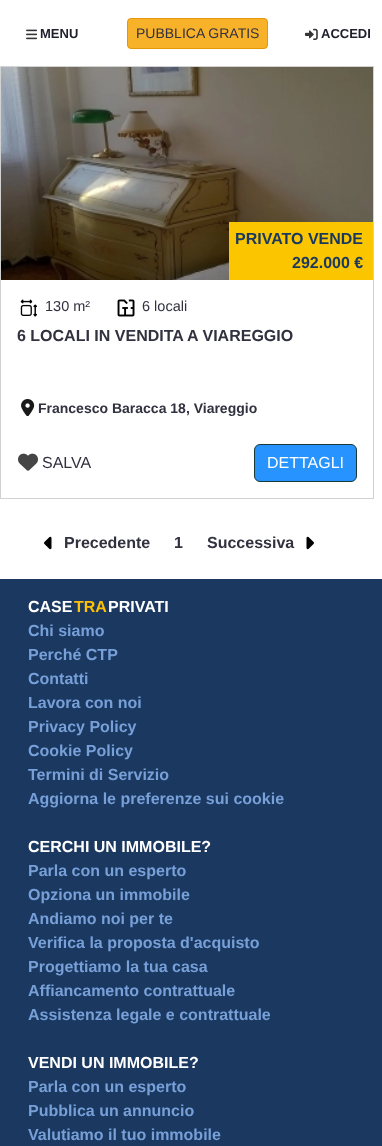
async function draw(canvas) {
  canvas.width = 382;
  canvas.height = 1146;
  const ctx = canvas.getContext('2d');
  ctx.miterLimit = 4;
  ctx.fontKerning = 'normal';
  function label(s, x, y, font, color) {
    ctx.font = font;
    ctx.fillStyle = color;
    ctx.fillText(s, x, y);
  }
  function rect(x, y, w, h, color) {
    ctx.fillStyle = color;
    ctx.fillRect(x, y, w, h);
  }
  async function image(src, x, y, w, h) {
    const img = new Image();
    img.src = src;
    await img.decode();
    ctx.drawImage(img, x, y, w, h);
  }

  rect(0, 0, 382, 1146, '#fff');
  await image('assets/img1.png', 26, 29, 11, 11);
  label('MENU', 40, 38, 'bold 13px Liberation Sans', '#1f1f2e');
  ctx.fillStyle = '#f8b229';
  ctx.beginPath();
  ctx.roundRect(127.5, 18.5, 140, 30, 3.5);
  ctx.fill();
  ctx.strokeStyle = '#e49707';
  ctx.stroke();
  label('PUBBLICA GRATIS', 136, 38, '14px Liberation Sans', '#31313f');
  await image('assets/img2.png', 305, 28, 13, 12);
  label('ACCEDI', 321, 38, 'bold 13px Liberation Sans', '#1f1f2e');
  ctx.strokeStyle = '#d2d2d2';
  ctx.strokeRect(0.5, 66.5, 373, 432);
  await image('assets/img3.png', 1, 67, 372, 213);
  rect(229, 222, 144, 58, '#fbc500');
  label('PRIVATO VENDE', 235, 244, 'bold 16px Liberation Sans', '#19385f');
  label('292.000 €', 292, 268, 'bold 16px Liberation Sans', '#19385f');
  await image('assets/img4.png', 20, 299, 18, 18);
  label('130 m²', 45, 311, '14.5px Liberation Sans', '#31313f');
  await image('assets/img5.png', 117, 299, 18, 18);
  label('6 locali', 142, 311, '14.5px Liberation Sans', '#31313f');
  label('6 LOCALI IN VENDITA A VIAREGGIO', 17, 341, 'bold 16px Liberation Sans', '#31313f');
  await image('assets/img6.png', 21, 399, 14, 17);
  label('Francesco Baracca 18, Viareggio', 38, 413, 'bold 14px Liberation Sans', '#31313f');
  await image('assets/img7.png', 18, 453, 20, 18);
  label('SALVA', 42, 468, '16px Liberation Sans', '#31313f');
  ctx.fillStyle = '#2693ff';
  ctx.beginPath();
  ctx.roundRect(254.5, 444.5, 102, 37, 5.5);
  ctx.fill();
  ctx.strokeStyle = '#193838';
  ctx.stroke();
  label('DETTAGLI', 267, 468, '16px Liberation Sans', '#fff');
  await image('assets/img8.png', 44, 536, 8, 14);
  label('Precedente', 64, 548, 'bold 16px Liberation Sans', '#31313f');
  label('1', 174, 548, 'bold 16px Liberation Sans', '#31313f');
  label('Successiva', 207, 548, 'bold 16px Liberation Sans', '#31313f');
  await image('assets/img9.png', 306, 536, 8, 14);
  rect(0, 579, 382, 567, '#1a3860');
  label('CASE', 28, 612, 'bold 16px Liberation Sans', '#fff');
  label('TRA', 74, 612, 'bold 16px Liberation Sans', '#ffc107');
  label('PRIVATI', 108, 612, 'bold 16px Liberation Sans', '#fff');
  label('Chi siamo', 28, 636, 'bold 16px Liberation Sans', '#77a0d9');
  label('Perché CTP', 28, 660, 'bold 16px Liberation Sans', '#77a0d9');
  label('Contatti', 28, 684, 'bold 16px Liberation Sans', '#77a0d9');
  label('Lavora con noi', 28, 708, 'bold 16px Liberation Sans', '#77a0d9');
  label('Privacy Policy', 28, 732, 'bold 16px Liberation Sans', '#77a0d9');
  label('Cookie Policy', 28, 756, 'bold 16px Liberation Sans', '#77a0d9');
  label('Termini di Servizio', 28, 780, 'bold 16px Liberation Sans', '#77a0d9');
  label('Aggiorna le preferenze sui cookie', 28, 804, 'bold 16px Liberation Sans', '#77a0d9');
  label('CERCHI UN IMMOBILE?', 28, 852, 'bold 16px Liberation Sans', '#fff');
  label('Parla con un esperto', 28, 876, 'bold 16px Liberation Sans', '#77a0d9');
  label('Opziona un immobile', 28, 900, 'bold 16px Liberation Sans', '#77a0d9');
  label('Andiamo noi per te', 28, 924, 'bold 16px Liberation Sans', '#77a0d9');
  label('Verifica la proposta d\'acquisto', 28, 948, 'bold 16px Liberation Sans', '#77a0d9');
  label('Progettiamo la tua casa', 28, 972, 'bold 16px Liberation Sans', '#77a0d9');
  label('Affiancamento contrattuale', 28, 996, 'bold 16px Liberation Sans', '#77a0d9');
  label('Assistenza legale e contrattuale', 28, 1020, 'bold 16px Liberation Sans', '#77a0d9');
  label('VENDI UN IMMOBILE?', 28, 1068, 'bold 16px Liberation Sans', '#fff');
  label('Parla con un esperto', 28, 1092, 'bold 16px Liberation Sans', '#77a0d9');
  label('Pubblica un annuncio', 28, 1116, 'bold 16px Liberation Sans', '#77a0d9');
  label('Valutiamo il tuo immobile', 28, 1140, 'bold 16px Liberation Sans', '#77a0d9');
}

draw(document.querySelector('canvas'));
